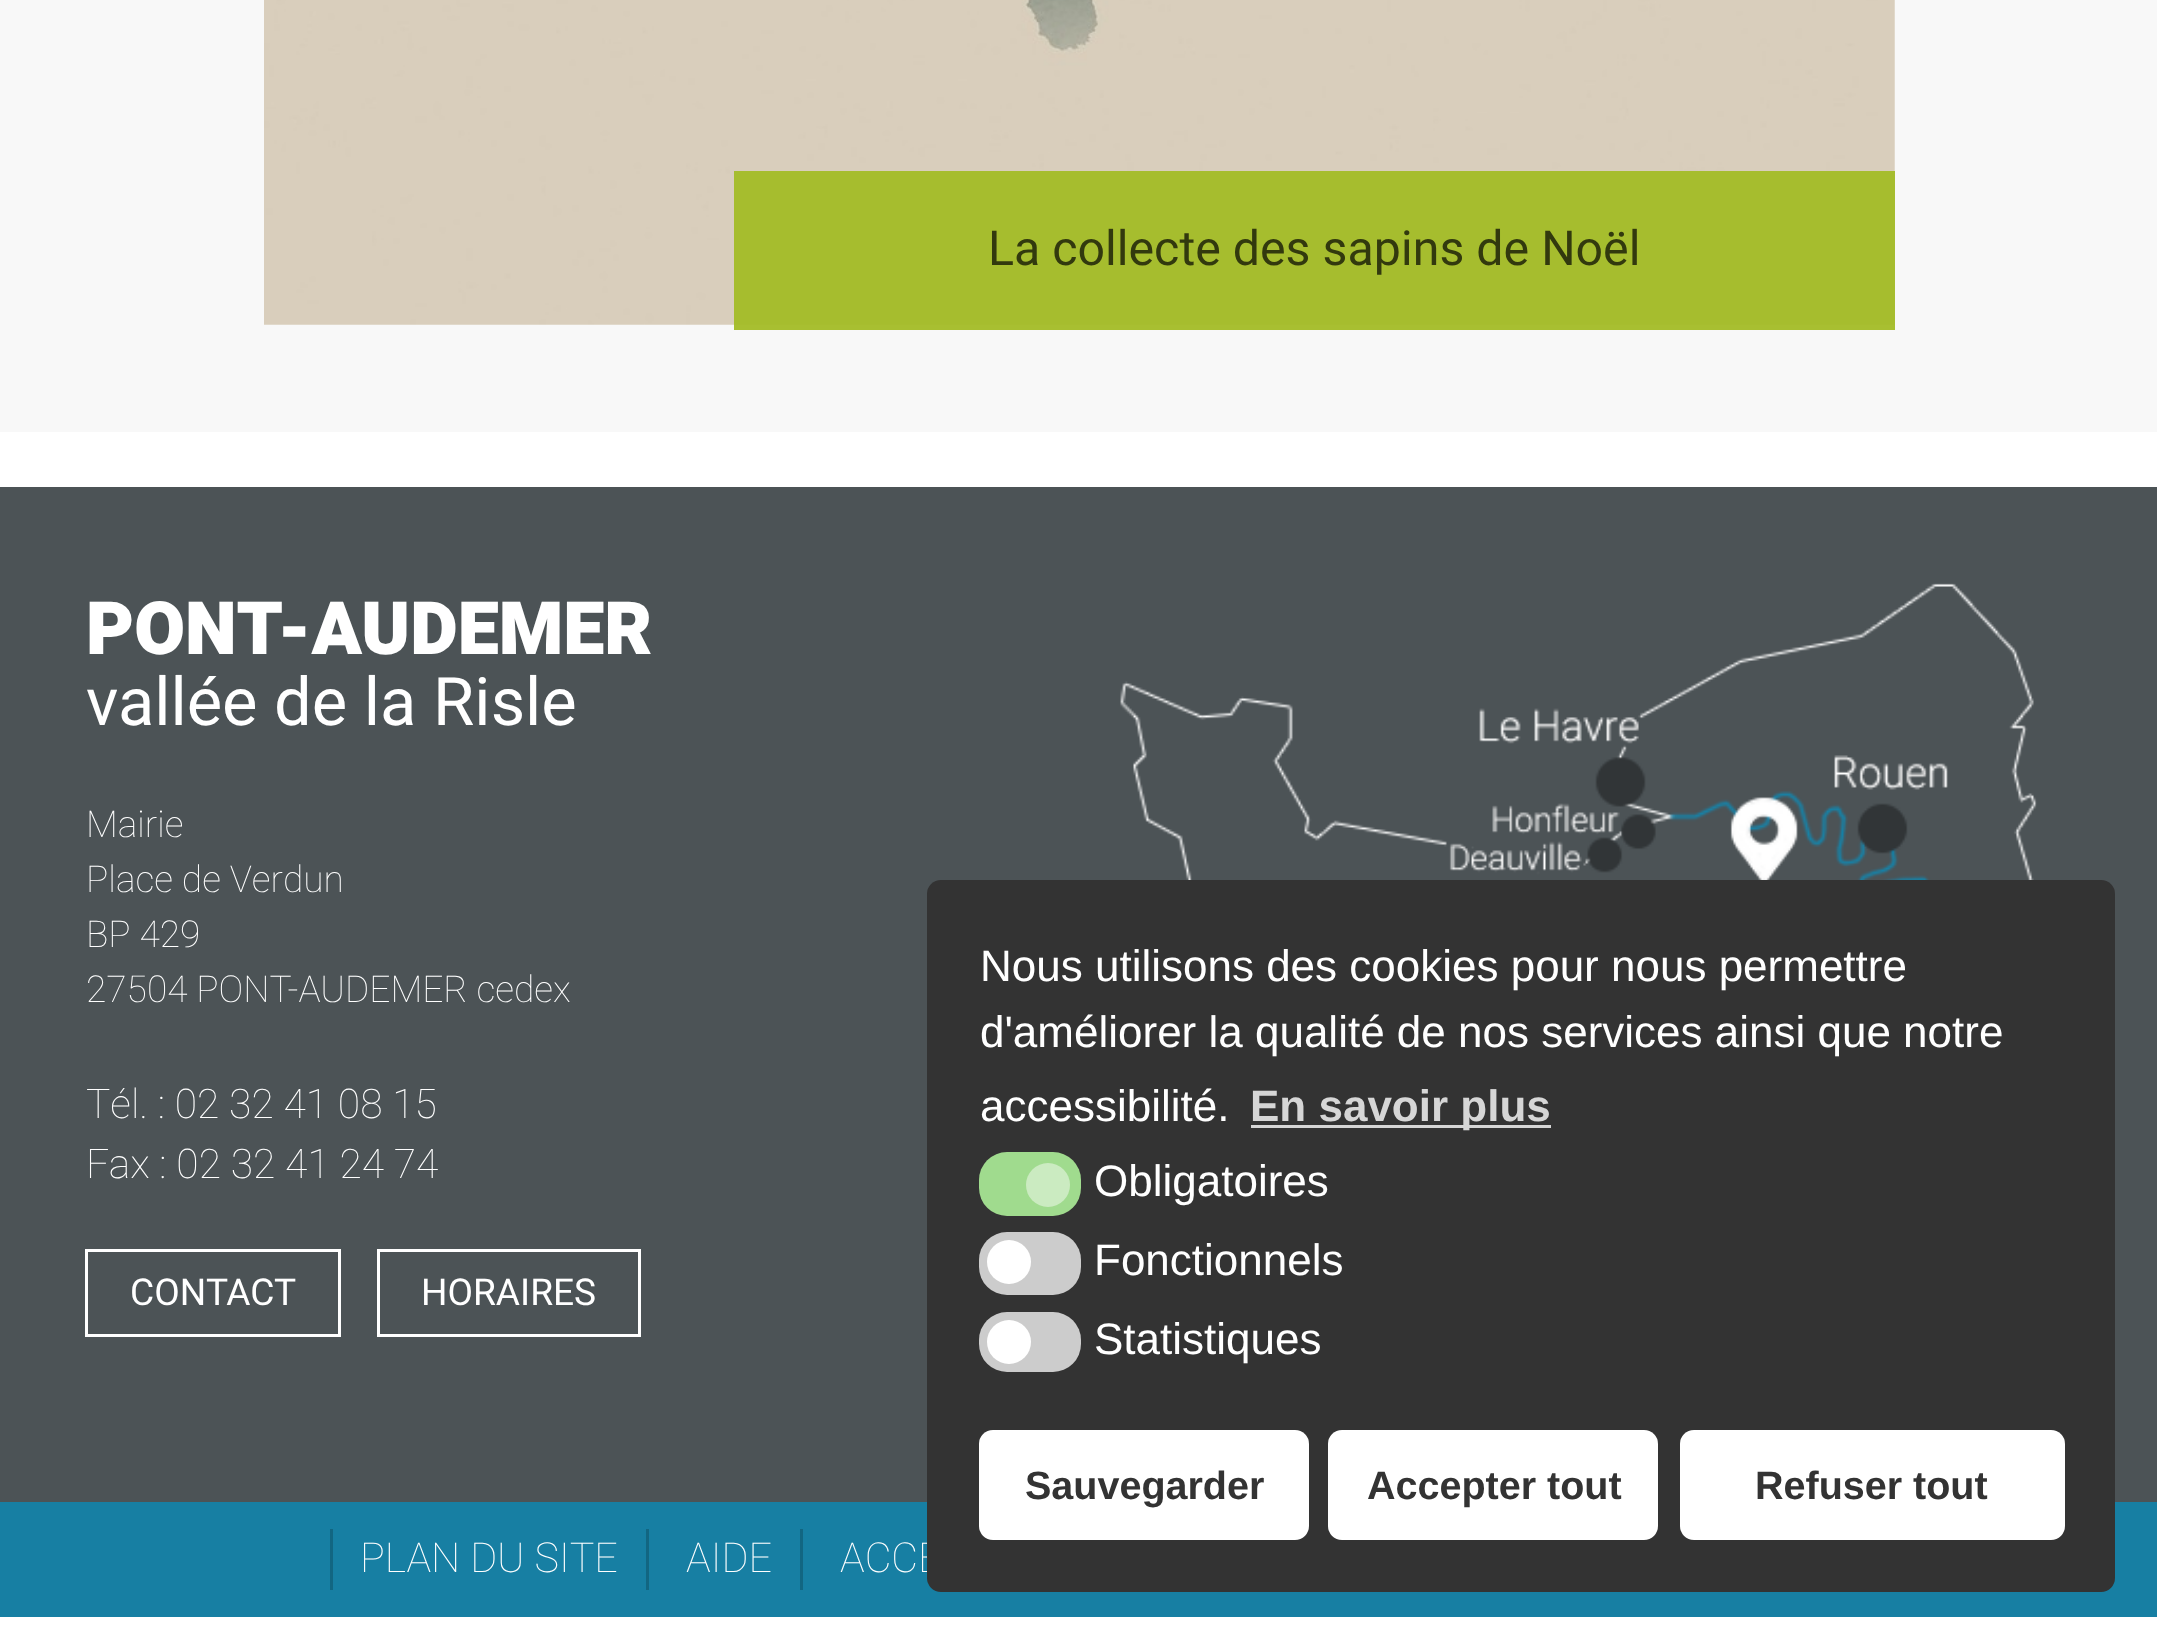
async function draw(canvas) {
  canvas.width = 2157;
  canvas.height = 1635;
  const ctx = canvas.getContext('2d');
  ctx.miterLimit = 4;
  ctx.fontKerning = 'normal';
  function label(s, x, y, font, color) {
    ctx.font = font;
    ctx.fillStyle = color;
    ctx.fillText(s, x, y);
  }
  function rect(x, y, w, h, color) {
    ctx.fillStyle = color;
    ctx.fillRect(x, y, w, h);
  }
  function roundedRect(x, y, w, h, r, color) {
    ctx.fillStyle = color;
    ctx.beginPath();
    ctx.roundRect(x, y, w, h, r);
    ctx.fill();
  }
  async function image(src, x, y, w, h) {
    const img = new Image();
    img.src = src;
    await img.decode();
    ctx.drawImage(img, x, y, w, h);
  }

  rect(0, 0, 2157, 1635, '#f8f8f8');
  rect(0, 432, 2157, 55, '#fff');
  await image('assets/img1.png', 264, 0, 1631, 325);
  rect(734, 171, 1161, 159, '#a3bc26f2');
  label('La collecte des sapins de Noël', 988, 265, '48.25px Heebo', '#32390e');
  rect(0, 487, 2157, 1015, '#4c5356');
  label('PONT-AUDEMER', 86, 654, '900 73.5px Heebo', '#fff');
  label('vallée de la Risle', 86, 725, '66.75px Heebo', '#fff');
  label('Mairie', 86, 837, '100 37.1px Heebo', '#fff');
  label('Place de Verdun', 86, 892, '100 37.1px Heebo', '#fff');
  label('BP 429', 86, 947, '100 37.1px Heebo', '#fff');
  label('27504 PONT-AUDEMER cedex', 86, 1002, '100 37.1px Heebo', '#fff');
  label('Tél. : 02 32 41 08 15', 86, 1118, '100 40.75px Heebo', '#fff');
  label('Fax : 02 32 41 24 74', 86, 1178, '100 40.75px Heebo', '#fff');
  ctx.strokeStyle = '#fff';
  ctx.lineWidth = 3;
  ctx.strokeRect(86.5, 1250.5, 253, 85);
  label('CONTACT', 130, 1305, '37.1px Heebo', '#fff');
  ctx.strokeRect(378.5, 1250.5, 261, 85);
  label('HORAIRES', 421, 1305, '37.1px Heebo', '#fff');
  await image('assets/img2.png', 1120, 583, 917, 297);
  rect(0, 1502, 2157, 115, '#177fa3');
  rect(646, 1529, 3, 61, '#126682');
  rect(330, 1529, 3, 61, '#126682');
  label('PLAN DU SITE', 360, 1572, '100 41.25px Heebo', '#fff');
  rect(800, 1529, 3, 61, '#126682');
  label('AIDE', 686, 1572, '100 41.25px Heebo', '#fff');
  label('ACCE', 840, 1572, '100 41.25px Heebo', '#fff');
  roundedRect(927, 880, 1188, 712, 14, '#333');
  label('Nous utilisons des cookies pour nous permettre', 980, 981, '44px Liberation Sans', '#fff');
  label('d\'améliorer la qualité de nos services ainsi que notre', 980, 1047, '44px Liberation Sans', '#fff');
  label('accessibilité.', 980, 1121, '44px Liberation Sans', '#fff');
  rect(1251, 1125, 300, 3, '#d6d6d6');
  label('En savoir plus', 1250, 1121, 'bold 44px Liberation Sans', '#d6d6d6');
  roundedRect(979, 1152, 102, 64, 28, '#a0db8e');
  ctx.fillStyle = '#cbebc1';
  ctx.beginPath();
  ctx.arc(1048, 1185, 22, 0, 2 * Math.PI);
  ctx.fill();
  label('Obligatoires', 1094, 1196, '44px Liberation Sans', '#fff');
  roundedRect(979, 1232, 102, 63, 28, '#ccc');
  ctx.fillStyle = '#fff';
  ctx.beginPath();
  ctx.arc(1009, 1262, 22, 0, 2 * Math.PI);
  ctx.fill();
  label('Fonctionnels', 1094, 1275, '44px Liberation Sans', '#fff');
  roundedRect(979, 1312, 102, 60, 28, '#ccc');
  ctx.fillStyle = '#fff';
  ctx.beginPath();
  ctx.arc(1009, 1342, 22, 0, 2 * Math.PI);
  ctx.fill();
  label('Statistiques', 1094, 1354, '44px Liberation Sans', '#fff');
  roundedRect(979, 1430, 330, 110, 14, '#fff');
  label('Sauvegarder', 1025, 1499, 'bold 39.5px Liberation Sans', '#333');
  roundedRect(1328, 1430, 330, 110, 14, '#fff');
  label('Accepter tout', 1367, 1499, 'bold 39.5px Liberation Sans', '#333');
  roundedRect(1680, 1430, 385, 110, 14, '#fff');
  label('Refuser tout', 1755, 1499, 'bold 39.5px Liberation Sans', '#333');
  rect(0, 1617, 2157, 18, '#fff');
}

draw(document.querySelector('canvas'));
